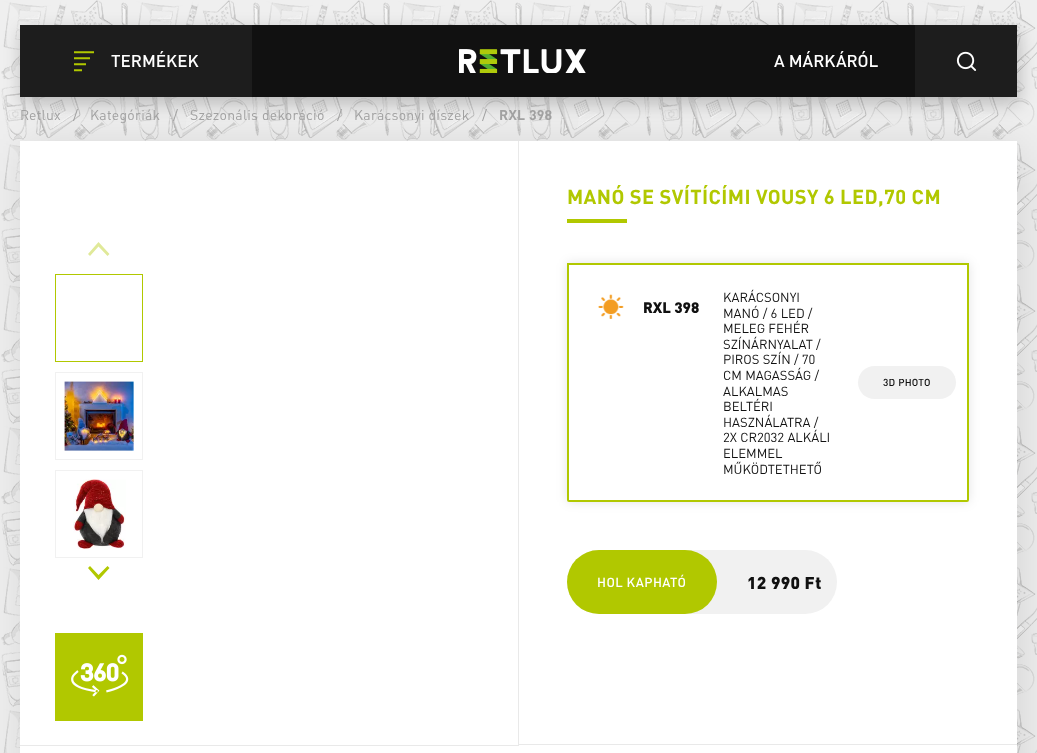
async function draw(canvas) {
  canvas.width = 1037;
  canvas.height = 753;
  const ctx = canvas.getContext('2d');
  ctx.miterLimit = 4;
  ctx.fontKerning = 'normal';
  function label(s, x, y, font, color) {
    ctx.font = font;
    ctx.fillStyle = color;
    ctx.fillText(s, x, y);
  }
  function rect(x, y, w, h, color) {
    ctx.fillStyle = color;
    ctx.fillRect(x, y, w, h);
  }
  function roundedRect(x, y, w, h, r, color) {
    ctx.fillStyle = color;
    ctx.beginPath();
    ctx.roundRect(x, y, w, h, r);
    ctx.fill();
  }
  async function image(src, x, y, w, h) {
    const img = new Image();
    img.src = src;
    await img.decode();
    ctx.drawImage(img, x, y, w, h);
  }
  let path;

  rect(0, 0, 1037, 753, '#efefef');
  await image('assets/img4.png', 1, 0, 1036, 753);
  ctx.fillStyle = '#0000003b';
  ctx.filter = 'blur(9px)';
  ctx.beginPath();
  ctx.rect(22, 31, 997, 72);
  ctx.fill();
  ctx.filter = 'none';
  ctx.fillStyle = '#0000001c';
  ctx.filter = 'blur(23px)';
  ctx.beginPath();
  ctx.rect(25, 146, 997, 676);
  ctx.fill();
  ctx.filter = 'none';
  rect(252, 25, 663, 72, '#111');
  rect(20, 25, 232, 72, '#1d1d1d');
  await image('assets/img1.png', 74, 51, 20, 21);
  label('TERMÉKEK', 111, 67, '500 17px DIN', '#fff');
  await image('assets/img2.png', 459, 49, 127, 24);
  label('A MÁRKÁRÓL', 774, 67, '500 17px DIN', '#fff');
  rect(915, 25, 102, 72, '#1d1d1d');
  await image('assets/img3.png', 956, 51, 21, 20);
  ctx.letterSpacing = '0.25px';
  label('Retlux', 20, 120, '14px DIN', '#a1a1a1');
  label('/', 73, 120, '14px DIN', '#a1a1a1');
  label('Kategóriák', 90, 120, '14px DIN', '#a1a1a1');
  label('/', 173, 120, '14px DIN', '#a1a1a1');
  label('Szezonális dekoráció', 190, 120, '14px DIN', '#a1a1a1');
  label('/', 337, 120, '14px DIN', '#a1a1a1');
  label('Karácsonyi díszek', 354, 120, '14px DIN', '#a1a1a1');
  label('/', 482, 120, '14px DIN', '#a1a1a1');
  label('RXL 398', 499, 120, 'bold 14px DIN', '#a1a1a1');
  rect(20, 141, 997, 612, '#fff');
  rect(518, 141, 1, 604, '#e9e9e9');
  ctx.fillStyle = '#e0e999';
  path = new Path2D('M98.5 242L109.5 254L107.5 256L98.5 246.5L90 256L88 254Z');
  ctx.fill(path);
  ctx.strokeStyle = '#b1c800';
  ctx.strokeRect(55.5, 274.5, 87, 87);
  ctx.strokeStyle = '#f1f1f1';
  ctx.strokeRect(55.5, 372.5, 87, 87);
  await image('assets/img5.png', 64, 381, 70, 70);
  ctx.strokeRect(55.5, 470.5, 87, 87);
  await image('assets/img6.png', 73, 479, 53, 70);
  ctx.fillStyle = '#b1c800';
  path = new Path2D('M98.5 580L88 568L90 566L98.5 575L107.5 566L109.5 568Z');
  ctx.fill(path);
  rect(55, 633, 88, 88, '#b1c800');
  await image('assets/img7.png', 71, 654, 58, 43);
  rect(519, 744, 498, 1, '#e9e9e9');
  ctx.letterSpacing = '0.4px';
  label('MANÓ SE SVÍTÍCÍMI VOUSY 6 LED,70 CM', 567, 204, 'bold 20px DIN', '#b1c800');
  rect(567, 219, 60, 4, '#b1c800');
  ctx.save();
  path = new Path2D('M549 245H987V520H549ZM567 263H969V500C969 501 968 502 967 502H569C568 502 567 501 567 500Z');
  ctx.clip(path, 'evenodd');
  ctx.fillStyle = '#0000001c';
  ctx.filter = 'blur(5.5px)';
  ctx.beginPath();
  ctx.roundRect(567, 263, 402, 239, 2);
  ctx.fill();
  ctx.filter = 'none';
  ctx.restore();
  ctx.beginPath();
  ctx.roundRect(568, 264, 400, 237, [0, 0, 1, 1]);
  ctx.strokeStyle = '#b1c800';
  ctx.lineWidth = 2;
  ctx.stroke();
  await image('assets/img8.png', 598, 294, 26, 25);
  ctx.letterSpacing = '0px';
  label('RXL 398', 643, 313, '900 15px DIN', '#111');
  label('KARÁCSONYI', 723, 302, '13px DIN', '#111');
  label('MANÓ / 6 LED /', 723, 318, '13px DIN', '#111');
  label('MELEG FEHÉR', 723, 333, '13px DIN', '#111');
  label('SZÍNÁRNYALAT /', 723, 349, '13px DIN', '#111');
  label('PIROS SZÍN / 70', 723, 364, '13px DIN', '#111');
  label('CM MAGASSÁG /', 723, 380, '13px DIN', '#111');
  label('ALKALMAS', 723, 396, '13px DIN', '#111');
  label('BELTÉRI', 723, 411, '13px DIN', '#111');
  label('HASZNÁLATRA /', 723, 427, '13px DIN', '#111');
  label('2X CR2032 ALKÁLI', 723, 442, '13px DIN', '#111');
  label('ELEMMEL', 723, 458, '13px DIN', '#111');
  label('MŰKÖDTETHETŐ', 723, 474, '13px DIN', '#111');
  roundedRect(858, 366, 98, 33, 16.5, '#f1f1f1');
  ctx.letterSpacing = '0.25px';
  label('3D PHOTO', 883, 386, '500 10px DIN', '#111');
  roundedRect(567, 550, 270, 64, 32, '#f1f1f1');
  roundedRect(567, 550, 150, 64, 32, '#b1c800');
  ctx.letterSpacing = '0.4px';
  label('HOL KAPHATÓ', 597, 587, '500 13px DIN', '#fff');
  label('12 990 Ft', 747, 589, '900 17px DIN', '#111');
  rect(20, 745, 499, 1, '#e9e9e9');
}

draw(document.querySelector('canvas'));
